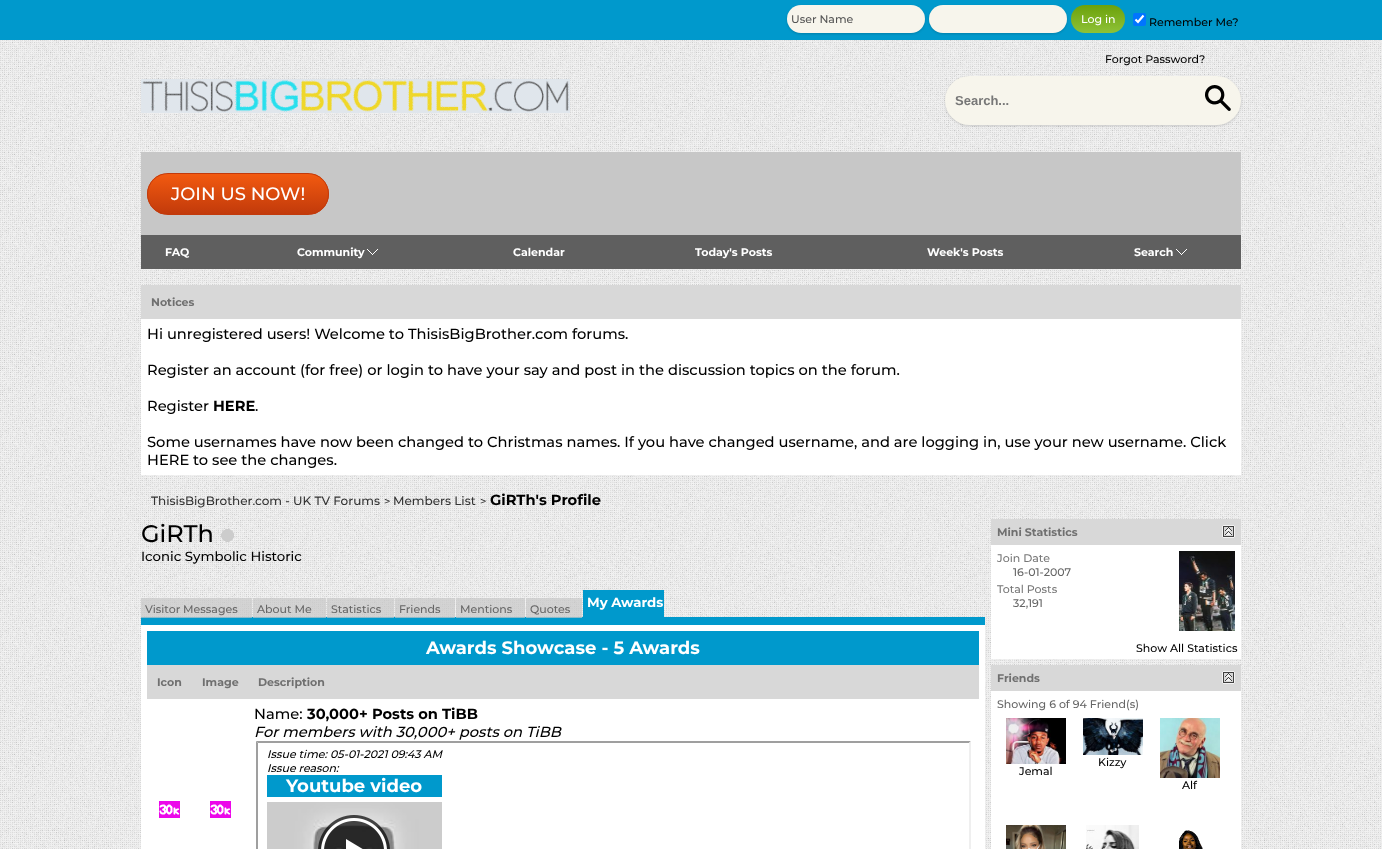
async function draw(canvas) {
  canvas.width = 1382;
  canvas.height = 849;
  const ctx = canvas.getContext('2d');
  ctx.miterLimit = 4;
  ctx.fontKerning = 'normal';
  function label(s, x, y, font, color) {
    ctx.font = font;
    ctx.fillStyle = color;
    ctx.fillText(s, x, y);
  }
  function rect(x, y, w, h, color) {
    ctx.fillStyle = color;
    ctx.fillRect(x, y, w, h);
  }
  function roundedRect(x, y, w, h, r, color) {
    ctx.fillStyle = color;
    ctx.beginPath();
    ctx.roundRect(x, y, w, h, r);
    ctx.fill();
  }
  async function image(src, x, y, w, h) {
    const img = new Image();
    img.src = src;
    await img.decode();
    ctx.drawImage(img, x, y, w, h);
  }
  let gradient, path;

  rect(0, 0, 1382, 849, '#fff');
  await image('assets/img1.png', 0, 40, 1382, 809);
  rect(0, 0, 1382, 40, '#09c');
  ctx.fillStyle = '#00000029';
  ctx.filter = 'blur(1px)';
  ctx.beginPath();
  ctx.roundRect(787, 6, 138, 28, 14);
  ctx.fill();
  ctx.filter = 'none';
  roundedRect(787, 5, 138, 28, 14, '#f7f5ec');
  label('User Name', 791, 23, '500 11px Montserrat', '#555');
  ctx.fillStyle = '#00000029';
  ctx.filter = 'blur(1px)';
  ctx.beginPath();
  ctx.roundRect(929, 6, 138, 28, 14);
  ctx.fill();
  ctx.filter = 'none';
  roundedRect(929, 5, 138, 28, 14, '#f7f5ec');
  gradient = ctx.createLinearGradient(1098, 5, 1098, 33);
  gradient.addColorStop(0, '#6ca10b');
  gradient.addColorStop(1, '#8ec237');
  ctx.fillStyle = gradient;
  ctx.beginPath();
  ctx.roundRect(1071, 5, 54, 28, 14);
  ctx.fill();
  label('Log in', 1081, 23, '500 11px Montserrat', '#fff');
  roundedRect(1133, 13, 13, 13, 2, '#0075ff');
  path = new Path2D('M1135.5 19.5L1138 22L1143.5 15.5');
  ctx.strokeStyle = '#fff';
  ctx.lineWidth = 2.1;
  ctx.stroke(path);
  label('Remember Me?', 1149, 26, '500 11px Montserrat', '#000');
  label('Forgot Password?', 1105, 63, '500 11px Montserrat', '#000');
  await image('assets/img2.png', 141, 79, 429, 34);
  ctx.fillStyle = '#00000029';
  ctx.filter = 'blur(1px)';
  ctx.beginPath();
  ctx.roundRect(945, 77, 296, 49, 24.5);
  ctx.fill();
  ctx.filter = 'none';
  roundedRect(945, 76, 296, 49, 24.5, '#f7f5ec');
  label('Search...', 955, 105, 'bold 13px Liberation Sans', '#777');
  await image('assets/img3.png', 1205, 85, 26, 26);
  rect(141, 152, 1100, 83, '#c7c7c7');
  ctx.save();
  ctx.beginPath();
  ctx.roundRect(147, 173, 182, 42, 21);
  ctx.clip();
  gradient = ctx.createLinearGradient(238, 214, 238, 174);
  gradient.addColorStop(0, '#c23a0b');
  gradient.addColorStop(1, '#f25a10');
  ctx.fillStyle = gradient;
  ctx.fillRect(147, 174, 182, 40);
  ctx.restore();
  ctx.beginPath();
  ctx.roundRect(147.5, 173.5, 181, 41, 20.5);
  ctx.strokeStyle = '#c23a0b';
  ctx.lineWidth = 1;
  ctx.stroke();
  label('JOIN US NOW!', 171, 200, '500 18px Montserrat', '#fff');
  rect(141, 235, 1100, 34, '#5f5f5f');
  label('FAQ', 165, 256, 'bold 11px Montserrat', '#fff');
  label('Community', 297, 256, 'bold 11px Montserrat', '#fff');
  await image('assets/img4.png', 367, 249, 11, 6);
  label('Calendar', 513, 256, 'bold 11px Montserrat', '#fff');
  label('Today\'s Posts', 695, 256, 'bold 11px Montserrat', '#fff');
  label('Week\'s Posts', 927, 256, 'bold 11px Montserrat', '#fff');
  label('Search', 1134, 256, 'bold 11px Montserrat', '#fff');
  await image('assets/img4.png', 1176, 249, 11, 6);
  rect(141, 319, 1100, 156, '#fff');
  rect(141, 285, 1100, 34, '#d8d8d8');
  label('Notices', 151, 306, 'bold 11px Montserrat', '#707070');
  label('Hi unregistered users! Welcome to ThisisBigBrother.com forums.', 147, 339, '500 14.67px Montserrat', '#000');
  label('Register an account (for free) or login to have your say and post in the discussion topics on the forum.', 147, 375, '500 14.67px Montserrat', '#000');
  label('Register', 147, 411, '500 14.67px Montserrat', '#000');
  label('HERE', 213, 411, 'bold 14.67px Montserrat', '#000');
  label('.', 255, 411, '500 14.67px Montserrat', '#000');
  label('Some usernames have now been changed to Christmas names. If you have changed username, and are logging in, use your new username. Click', 147, 447, '500 14.67px Montserrat', '#000');
  label('HERE', 147, 465, '500 14.67px Montserrat', '#000');
  label('to see the changes.', 193, 465, '500 14.67px Montserrat', '#000');
  label('ThisisBigBrother.com - UK TV Forums', 151, 505, '500 12px Montserrat', '#333');
  label('>', 384, 505, '500 11px Montserrat', '#333');
  label('Members List', 393, 505, '500 12px Montserrat', '#333');
  label('>', 480, 505, '500 11px Montserrat', '#333');
  label('GiRTh\'s Profile', 490, 505, 'bold 14.67px Montserrat', '#000');
  label('GiRTh', 141, 542, '500 24px Montserrat', '#000');
  await image('assets/img5.png', 221, 529, 13, 13);
  label('Iconic Symbolic Historic', 141, 561, '500 13.25px Montserrat', '#000');
  rect(141, 617, 844, 8, '#09c');
  rect(141, 598, 111, 20, '#c7c7c7b3');
  label('Visitor Messages', 145, 613, '500 11px Montserrat', '#666');
  rect(253, 598, 73, 20, '#c7c7c7b3');
  label('About Me', 257, 613, '500 11px Montserrat', '#666');
  rect(327, 598, 67, 20, '#c7c7c7b3');
  label('Statistics', 331, 613, '500 11px Montserrat', '#666');
  rect(395, 598, 60, 20, '#c7c7c7b3');
  label('Friends', 399, 613, '500 11px Montserrat', '#666');
  rect(456, 598, 69, 20, '#c7c7c7b3');
  label('Mentions', 460, 613, '500 11px Montserrat', '#666');
  rect(526, 598, 56, 20, '#c7c7c7b3');
  label('Quotes', 530, 613, '500 11px Montserrat', '#666');
  rect(583, 590, 81, 27, '#09c');
  label('My Awards', 587, 607, 'bold 13.25px Montserrat', '#fff');
  rect(141, 625, 844, 224, '#fff');
  rect(147, 631, 832, 34, '#09c');
  label('Awards Showcase - 5 Awards', 426, 654, 'bold 18px Montserrat', '#fff');
  rect(147, 665, 832, 34, '#d8d8d8');
  label('Icon', 157, 686, 'bold 11px Montserrat', '#707070');
  label('Image', 202, 686, 'bold 11px Montserrat', '#707070');
  label('Description', 258, 686, 'bold 11px Montserrat', '#707070');
  label('Name:', 254, 719, '500 14.67px Montserrat', '#000');
  label('30,000+ Posts on TiBB', 307, 719, 'bold 14.67px Montserrat', '#000');
  label('For members with 30,000+ posts on TiBB', 254, 737, 'italic 500 14.67px Montserrat', '#000');
  ctx.fillStyle = '#9f9f9f';
  path = new Path2D('M256 741H971L969 743H258Z');
  ctx.fill(path);
  ctx.fillStyle = '#efefef';
  path = new Path2D('M971 741V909L969 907V743Z');
  ctx.fill(path);
  ctx.fillStyle = '#9f9f9f';
  path = new Path2D('M256 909V741L258 743V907Z');
  ctx.fill(path);
  label('Issue time: 05-01-2021 09:43 AM', 267, 758, 'italic 500 11px Montserrat', '#000');
  label('Issue reason:', 267, 772, 'italic 500 11px Montserrat', '#000');
  rect(267, 775, 175, 22, '#09c');
  label('Youtube video', 286, 792, 'bold 18px Montserrat', '#fff');
  await image('assets/img6.png', 267, 802, 175, 47);
  await image('assets/img7.png', 318, 815, 72, 34);
  await image('assets/img8.png', 159, 801, 21, 17);
  await image('assets/img8.png', 210, 801, 21, 17);
  rect(991, 545, 250, 114, '#fff');
  rect(991, 519, 250, 26, '#d8d8d8');
  label('Mini Statistics', 997, 536, 'bold 11px Montserrat', '#707070');
  await image('assets/img9.png', 1222, 525, 13, 13);
  label('Join Date', 997, 562, '500 11px Montserrat', '#777');
  label('16-01-2007', 1013, 576, '500 11px Montserrat', '#666');
  label('Total Posts', 997, 593, '500 11px Montserrat', '#777');
  label('32,191', 1013, 607, '500 11px Montserrat', '#666');
  await image('assets/img10.png', 1179, 551, 56, 80);
  label('Show All Statistics', 1136, 652, '500 11px Montserrat', '#000');
  rect(991, 691, 250, 158, '#fff');
  rect(991, 665, 250, 26, '#d8d8d8');
  label('Friends', 997, 682, 'bold 11px Montserrat', '#707070');
  await image('assets/img9.png', 1222, 671, 13, 13);
  label('Showing 6 of 94 Friend(s)', 997, 708, '500 11px Montserrat', '#666');
  await image('assets/img11.png', 1083, 718, 60, 37);
  label('Kizzy', 1098, 766, '500 11px Montserrat', '#000');
  await image('assets/img12.png', 1006, 718, 60, 46);
  label('Jemal', 1019, 775, '500 11px Montserrat', '#000');
  await image('assets/img13.png', 1160, 718, 60, 60);
  label('Alf', 1182, 789, '500 11px Montserrat', '#000');
  await image('assets/img14.png', 1006, 825, 60, 24);
  await image('assets/img15.png', 1086, 825, 53, 24);
  await image('assets/img16.png', 1179, 830, 24, 19);
}

draw(document.querySelector('canvas'));
